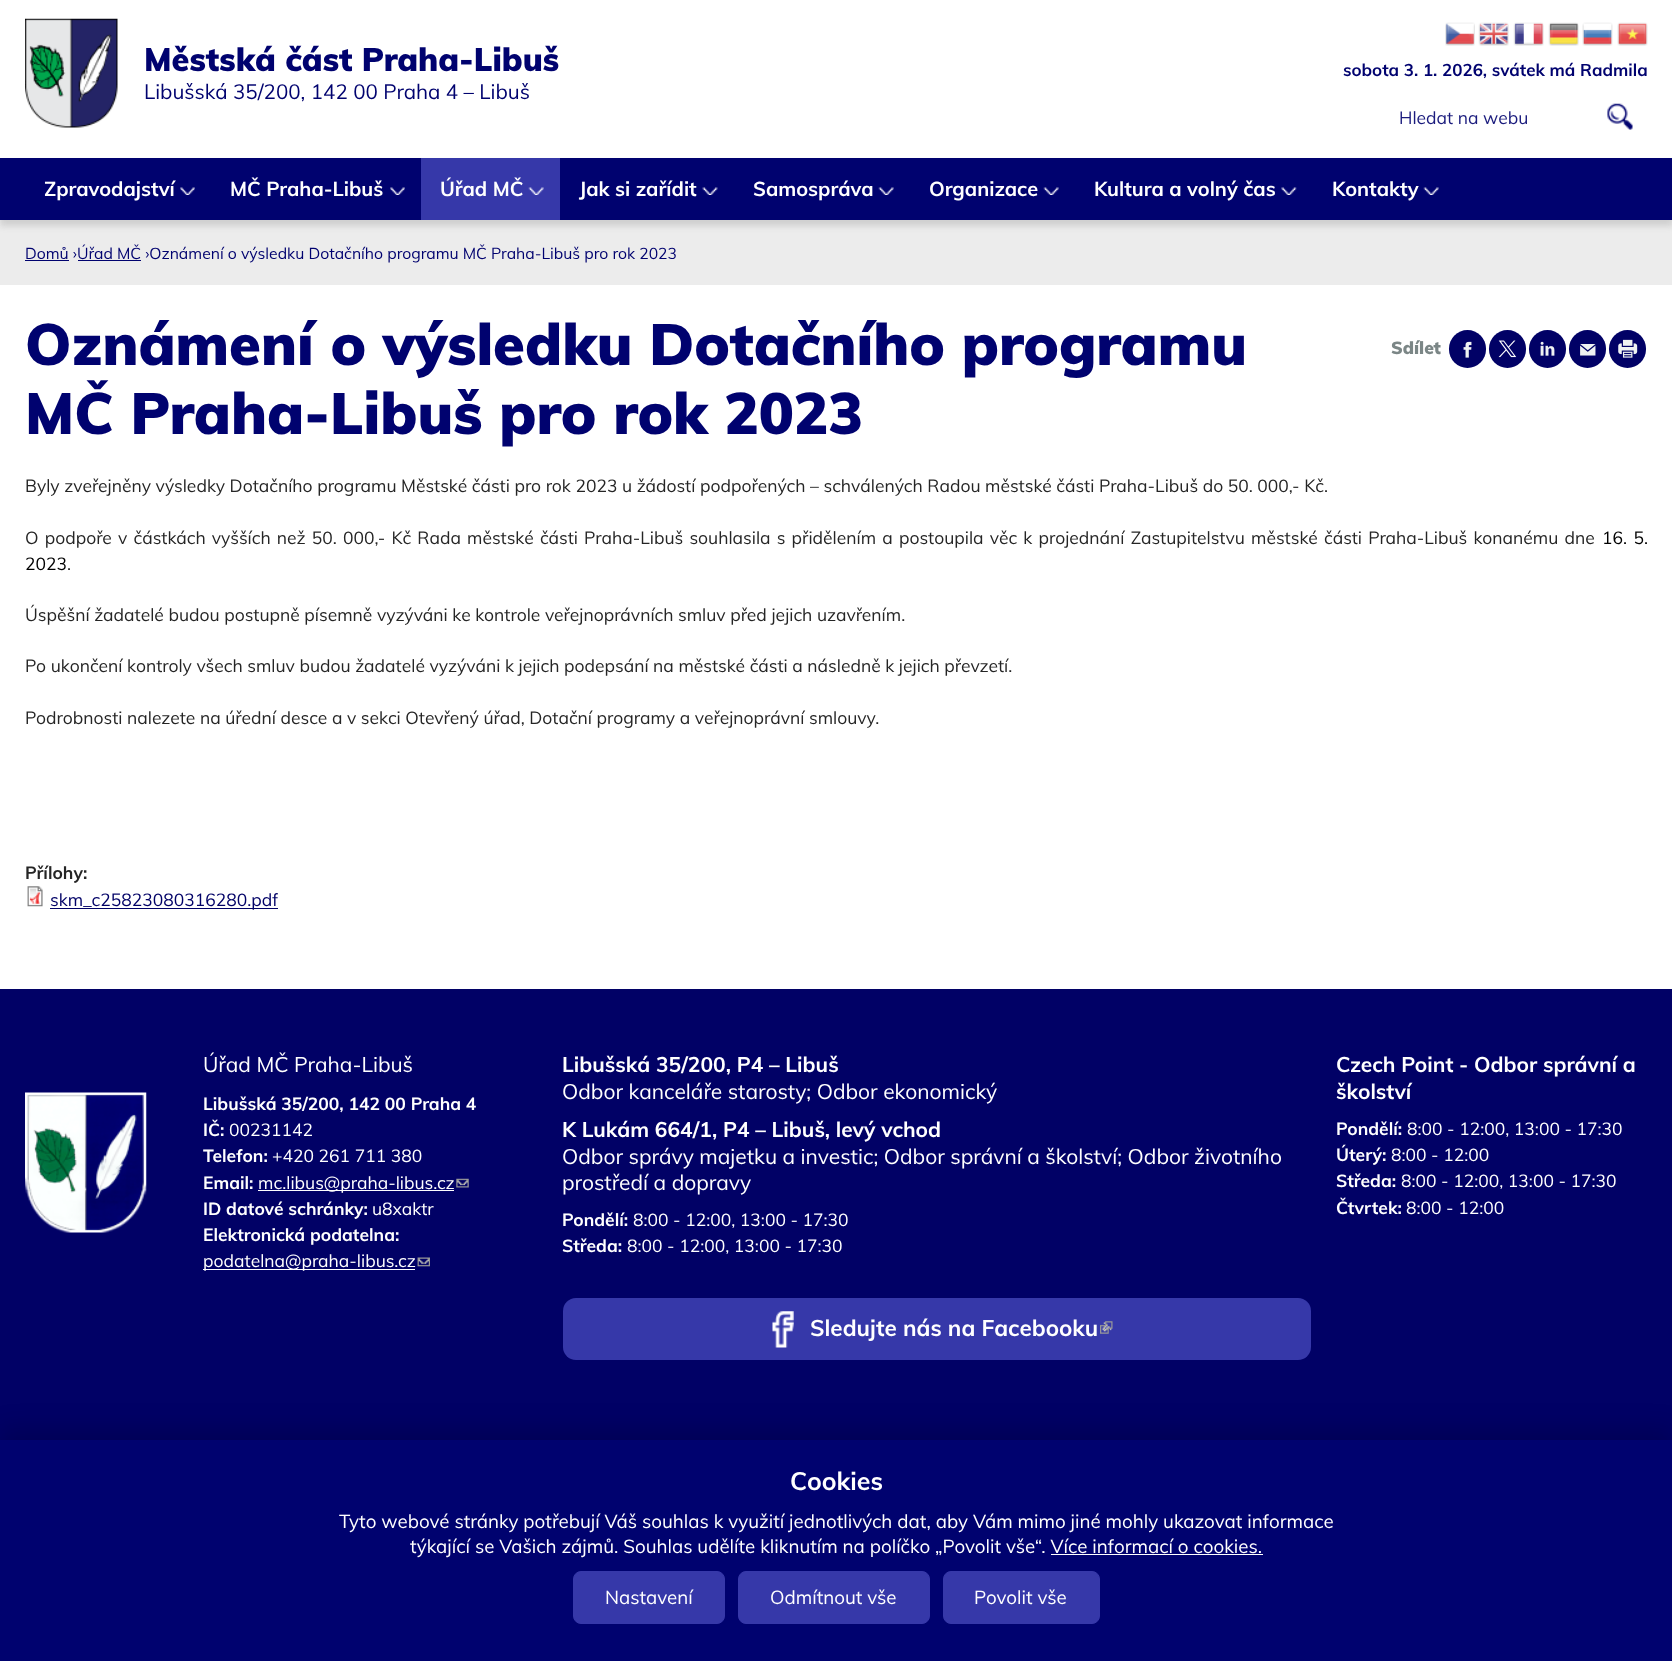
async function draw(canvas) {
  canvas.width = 1672;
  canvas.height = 1661;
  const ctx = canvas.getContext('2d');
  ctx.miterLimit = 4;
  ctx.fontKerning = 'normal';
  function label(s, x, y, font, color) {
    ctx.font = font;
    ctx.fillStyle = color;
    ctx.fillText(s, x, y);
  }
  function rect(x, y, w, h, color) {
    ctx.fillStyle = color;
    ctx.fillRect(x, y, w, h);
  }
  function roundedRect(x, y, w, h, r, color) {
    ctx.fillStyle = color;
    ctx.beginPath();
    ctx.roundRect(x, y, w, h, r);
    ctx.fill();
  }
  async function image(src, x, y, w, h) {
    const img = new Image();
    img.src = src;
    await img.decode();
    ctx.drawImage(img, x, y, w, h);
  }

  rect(0, 0, 1672, 1661, '#fff');
  await image('assets/img1.png', 25, 18, 93, 110);
  label('Městská část Praha-Libuš', 144, 71, '900 32.4px Muli', '#00026f');
  label('Libušská 35/200, 142 00 Praha 4 – Libuš', 144, 99, '20.6px Muli', '#00026f');
  await image('assets/img2.png', 1445, 22, 30, 24);
  await image('assets/img3.png', 1478, 22, 31, 24);
  await image('assets/img4.png', 1513, 22, 31, 24);
  await image('assets/img5.png', 1548, 22, 31, 24);
  await image('assets/img6.png', 1582, 22, 31, 24);
  await image('assets/img7.png', 1617, 22, 31, 24);
  label('sobota 3. 1. 2026, svátek má Radmila', 1343, 76, 'bold 17px Muli', '#00026f');
  label('Hledat na webu', 1399, 124, '17.5px Muli', '#1a1b7d');
  await image('assets/img8.png', 1607, 103, 26, 27);
  rect(0, 220, 1672, 65, '#ececec');
  ctx.fillStyle = '#32323226';
  ctx.filter = 'blur(3px)';
  ctx.beginPath();
  ctx.rect(0, 164, 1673, 62);
  ctx.fill();
  ctx.filter = 'none';
  rect(0, 158, 1672, 62, '#00026f');
  label('Zpravodajství', 44, 196, 'bold 20px Muli', '#fff');
  await image('assets/img9.png', 180, 187, 15, 8);
  label('MČ Praha-Libuš', 230, 196, 'bold 20px Muli', '#fff');
  await image('assets/img9.png', 390, 187, 15, 8);
  rect(421, 158, 139, 62, '#3638a9');
  label('Úřad MČ', 440, 196, 'bold 20px Muli', '#fff');
  await image('assets/img10.png', 528, 187, 16, 8);
  label('Jak si zařídit', 579, 196, 'bold 20px Muli', '#fff');
  await image('assets/img11.png', 702, 187, 16, 8);
  label('Samospráva', 753, 196, 'bold 20px Muli', '#fff');
  await image('assets/img12.png', 878, 187, 16, 8);
  label('Organizace', 929, 196, 'bold 20px Muli', '#fff');
  await image('assets/img13.png', 1043, 187, 16, 8);
  label('Kultura a volný čas', 1094, 196, 'bold 20px Muli', '#fff');
  await image('assets/img14.png', 1281, 187, 16, 8);
  label('Kontakty', 1332, 196, 'bold 20px Muli', '#fff');
  await image('assets/img12.png', 1423, 187, 16, 8);
  rect(25, 260, 44, 1, '#00026f');
  label('Domů ›Úřad MČ ›Oznámení o výsledku Dotačního programu MČ Praha-Libuš pro rok 2023', 25, 259, '15.75px Muli', '#00026f');
  rect(78, 260, 63, 1, '#00026f');
  label('Oznámení o výsledku Dotačního programu', 25, 365, '900 57.75px Muli', '#00026f');
  label('MČ Praha-Libuš pro rok 2023', 25, 434, '900 57.75px Muli', '#00026f');
  label('Sdílet', 1391, 354, '900 17.5px Muli', '#7b8686');
  roundedRect(1449, 330, 37, 38, 18.5, '#010166');
  await image('assets/img15.png', 1463, 341, 9, 17);
  roundedRect(1489, 330, 37, 38, 18.5, '#010166');
  await image('assets/img16.png', 1498, 340, 19, 18);
  roundedRect(1529, 330, 37, 38, 18.5, '#010166');
  await image('assets/img17.png', 1540, 341, 15, 15);
  roundedRect(1569, 330, 37, 38, 18.5, '#010166');
  await image('assets/img18.png', 1580, 344, 16, 12);
  roundedRect(1609, 330, 37, 38, 18.5, '#010166');
  await image('assets/img19.png', 1618, 339, 20, 19);
  label('Byly zveřejněny výsledky Dotačního programu Městské části pro rok 2023 u žádostí podpořených – schválených Radou městské části Praha-Libuš do 50. 000,- Kč.', 25, 492, '17.5px Muli', '#252525');
  ctx.wordSpacing = '1.6px';
  label('O podpoře v částkách vyšších než 50. 000,- Kč Rada městské části Praha-Libuš souhlasila s přidělením a postoupila věc k projednání Zastupitelstvu městské části Praha-Libuš konanému dne', 25, 544, '17.5px Muli', '#252525');
  ctx.wordSpacing = '2px';
  label('16. 5.', 1602, 544, '17.5px Muli', '#000');
  ctx.wordSpacing = '0px';
  label('2023', 25, 570, '17.5px Muli', '#000');
  label('.', 67, 570, '17.5px Muli', '#252525');
  label('Úspěšní žadatelé budou postupně písemně vyzýváni ke kontrole veřejnoprávních smluv před jejich uzavřením.', 25, 621, '17.5px Muli', '#252525');
  label('Po ukončení kontroly všech smluv budou žadatelé vyzýváni k jejich podepsání na městské části a následně k jejich převzetí.', 25, 672, '17.5px Muli', '#252525');
  label('Podrobnosti nalezete na úřední desce a v sekci Otevřený úřad, Dotační programy a veřejnoprávní smlouvy.', 25, 724, '17.5px Muli', '#252525');
  label('Přílohy:', 25, 879, 'bold 17.5px Muli', '#252525');
  await image('assets/img20.png', 27, 886, 16, 21);
  rect(50, 908, 228, 1, '#010166');
  label('skm_c25823080316280.pdf', 50, 906, '17.5px Muli', '#010166');
  rect(0, 989, 1672, 451, '#010166');
  await image('assets/img21.png', 25, 1092, 122, 141);
  label('Úřad MČ Praha-Libuš', 203, 1072, '21px Muli', '#fff');
  label('Libušská 35/200, 142 00 Praha 4', 203, 1110, 'bold 17.5px Muli', '#fff');
  label('IČ:', 203, 1136, 'bold 17.5px Muli', '#fff');
  label('00231142', 229, 1136, '17.5px Muli', '#fff');
  label('Telefon:', 203, 1162, 'bold 17.5px Muli', '#fff');
  label('+420 261 711 380', 272, 1162, '17.5px Muli', '#fff');
  label('Email:', 203, 1189, 'bold 17.5px Muli', '#fff');
  rect(258, 1190, 196, 1, '#fff');
  label('mc.libus@praha-libus.cz', 258, 1189, '17.5px Muli', '#fff');
  await image('assets/img22.png', 456, 1178, 13, 10);
  label('ID datové schránky:', 203, 1215, 'bold 17.5px Muli', '#fff');
  label('u8xaktr', 372, 1215, '17.5px Muli', '#fff');
  label('Elektronická podatelna:', 203, 1241, 'bold 17.5px Muli', '#fff');
  rect(203, 1269, 212, 1, '#fff');
  label('podatelna@praha-libus.cz', 203, 1267, '17.5px Muli', '#fff');
  await image('assets/img23.png', 417, 1257, 13, 10);
  label('Libušská 35/200, P4 – Libuš', 562, 1072, 'bold 21px Muli', '#fff');
  label('Odbor kanceláře starosty; Odbor ekonomický', 562, 1099, '21px Muli', '#fff');
  label('K Lukám 664/1, P4 – Libuš, levý vchod', 562, 1137, 'bold 21px Muli', '#fff');
  label('Odbor správy majetku a investic; Odbor správní a školství; Odbor životního', 562, 1164, '21px Muli', '#fff');
  label('prostředí a dopravy', 562, 1190, '21px Muli', '#fff');
  label('Pondělí:', 562, 1226, 'bold 17.5px Muli', '#fff');
  label('8:00 - 12:00, 13:00 - 17:30', 633, 1226, '17.5px Muli', '#fff');
  label('Středa:', 562, 1252, 'bold 17.5px Muli', '#fff');
  label('8:00 - 12:00, 13:00 - 17:30', 627, 1252, '17.5px Muli', '#fff');
  roundedRect(563, 1298, 748, 62, 13, '#3638a9');
  await image('assets/img24.png', 772, 1311, 22, 37);
  label('Sledujte nás na Facebooku', 810, 1336, 'bold 22.5px Muli', '#fff');
  await image('assets/img25.png', 1100, 1321, 13, 13);
  label('Czech Point - Odbor správní a', 1336, 1072, 'bold 21px Muli', '#fff');
  label('školství', 1336, 1099, 'bold 21px Muli', '#fff');
  label('Pondělí:', 1336, 1135, 'bold 17.5px Muli', '#fff');
  label('8:00 - 12:00, 13:00 - 17:30', 1407, 1135, '17.5px Muli', '#fff');
  label('Úterý:', 1336, 1161, 'bold 17.5px Muli', '#fff');
  label('8:00 - 12:00', 1391, 1161, '17.5px Muli', '#fff');
  label('Středa:', 1336, 1187, 'bold 17.5px Muli', '#fff');
  label('8:00 - 12:00, 13:00 - 17:30', 1401, 1187, '17.5px Muli', '#fff');
  label('Čtvrtek:', 1336, 1214, 'bold 17.5px Muli', '#fff');
  label('8:00 - 12:00', 1406, 1214, '17.5px Muli', '#fff');
  ctx.fillStyle = '#00000026';
  ctx.filter = 'blur(12.5px)';
  ctx.beginPath();
  ctx.rect(0, 1428, 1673, 221);
  ctx.fill();
  ctx.filter = 'none';
  rect(0, 1440, 1672, 221, '#00026f');
  label('Cookies', 790, 1490, 'bold 25px Muli', '#fff');
  label('Tyto webové stránky potřebují Váš souhlas k využití jednotlivých dat, aby Vám mimo jiné mohly ukazovat informace', 339, 1528, '18.75px Muli', '#fff');
  label('týkající se Vašich zájmů. Souhlas udělíte kliknutím na políčko „Povolit vše“. Více informací o cookies.', 410, 1553, '18.75px Muli', '#fff');
  rect(1051, 1554, 212, 1, '#fff');
  ctx.fillStyle = '#3638a9';
  ctx.beginPath();
  ctx.roundRect(573.5, 1571.5, 151, 52, 7.5);
  ctx.fill();
  ctx.strokeStyle = '#3638a9';
  ctx.stroke();
  label('Nastavení', 605, 1604, '18.75px Muli', '#fff');
  ctx.fillStyle = '#3638a9';
  ctx.beginPath();
  ctx.roundRect(738.5, 1571.5, 191, 52, 7.5);
  ctx.fill();
  ctx.stroke();
  label('Odmítnout vše', 770, 1604, '18.75px Muli', '#fff');
  ctx.fillStyle = '#3638a9';
  ctx.beginPath();
  ctx.roundRect(943.5, 1571.5, 156, 52, 7.5);
  ctx.fill();
  ctx.stroke();
  label('Povolit vše', 974, 1604, '18.75px Muli', '#fff');
}

draw(document.querySelector('canvas'));
